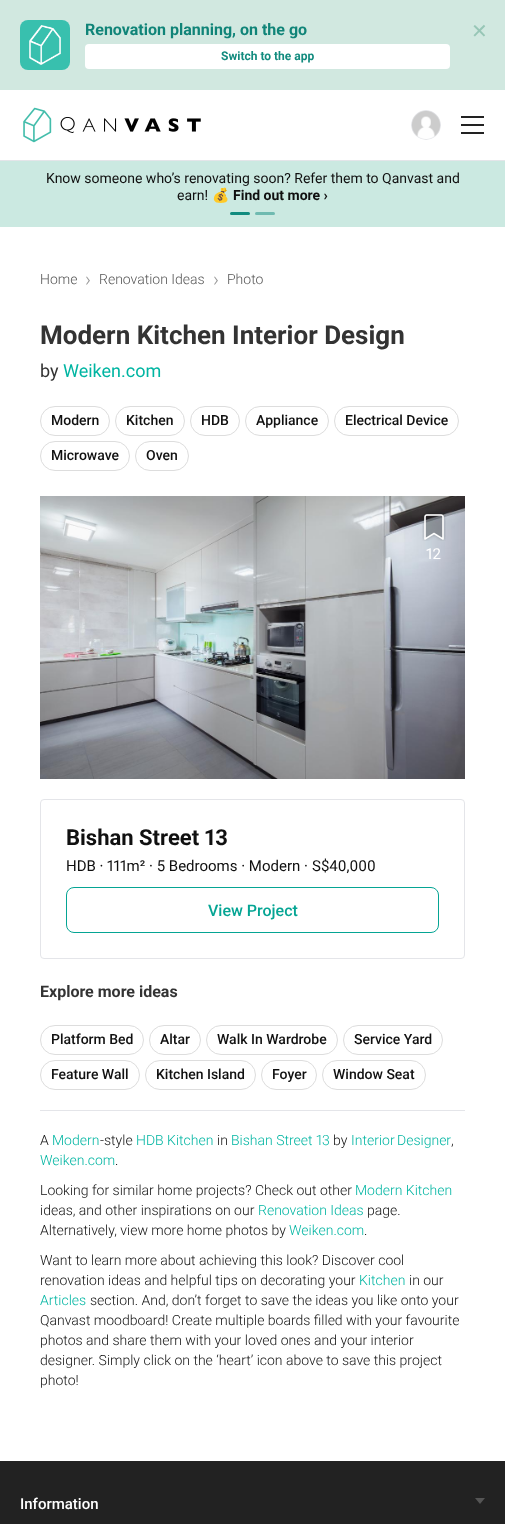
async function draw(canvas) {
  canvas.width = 505;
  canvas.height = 1524;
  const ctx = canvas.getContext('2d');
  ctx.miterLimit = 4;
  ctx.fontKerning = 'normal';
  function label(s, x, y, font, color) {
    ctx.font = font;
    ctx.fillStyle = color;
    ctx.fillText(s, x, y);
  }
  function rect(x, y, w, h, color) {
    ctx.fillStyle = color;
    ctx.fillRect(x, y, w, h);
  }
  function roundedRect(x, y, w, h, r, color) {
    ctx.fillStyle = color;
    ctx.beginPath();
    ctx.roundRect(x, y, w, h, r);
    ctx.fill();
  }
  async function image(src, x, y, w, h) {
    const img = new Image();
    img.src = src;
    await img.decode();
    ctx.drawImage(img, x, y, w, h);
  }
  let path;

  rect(0, 0, 505, 1524, '#fff');
  rect(0, 0, 505, 90, '#d1e8e0');
  await image('assets/img1.png', 20, 20, 50, 50);
  label('Renovation planning, on the go', 85, 35, 'bold 16px Roboto', '#108478');
  roundedRect(85, 44, 365, 25, 4, '#fff');
  label('Switch to the app', 221, 60, 'bold 12px Roboto', '#128b7e');
  label('✕', 471, 38, '20px DejaVu Sans', '#97c6b6');
  rect(0, 160, 505, 1, '#e4e5e9');
  await image('assets/img2.png', 23, 107, 178, 36);
  await image('assets/img3.png', 411, 110, 30, 30);
  rect(461, 116, 23, 2, '#222');
  rect(461, 124, 23, 2, '#222');
  rect(461, 132, 23, 2, '#222');
  rect(0, 161, 505, 66, '#cbe9e1');
  label('Know someone who’s renovating soon? Refer them to Qanvast and', 46, 183, '14px Roboto', '#101010');
  label('earn!', 177, 200, '14px Roboto', '#101010');
  label('💰', 212, 200, '14px Noto Color Emoji', '#101010');
  label('Find out more ›', 233, 200, 'bold 14px Roboto', '#101010');
  roundedRect(230, 212, 20, 3, 1.5, '#128b7e');
  roundedRect(255, 212, 20, 3, 1.5, '#6fbab0');
  label('Home', 40, 284, '300 14px Roboto', '#555');
  label('›', 85, 286, '300 20px Roboto', '#999');
  label('Renovation Ideas', 99, 284, '300 14px Roboto', '#555');
  label('›', 213, 286, '300 20px Roboto', '#999');
  label('Photo', 227, 284, '300 14px Roboto', '#555');
  label('Modern Kitchen Interior Design', 40, 344, 'bold 26px Roboto', '#333');
  label('by', 40, 377, '18px Roboto', '#333');
  label('Weiken.com', 63, 377, '18px Roboto', '#00b5a2');
  ctx.beginPath();
  ctx.roundRect(40.5, 406.5, 69, 29, 14.5);
  ctx.strokeStyle = '#ddd';
  ctx.stroke();
  label('Modern', 51, 425, '500 14px Roboto', '#101010');
  ctx.beginPath();
  ctx.roundRect(115.5, 406.5, 69, 29, 14.5);
  ctx.stroke();
  label('Kitchen', 126, 425, '500 14px Roboto', '#101010');
  ctx.beginPath();
  ctx.roundRect(190.5, 406.5, 49, 29, 14.5);
  ctx.stroke();
  label('HDB', 201, 425, '500 14px Roboto', '#101010');
  ctx.beginPath();
  ctx.roundRect(245.5, 406.5, 83, 29, 14.5);
  ctx.stroke();
  label('Appliance', 256, 425, '500 14px Roboto', '#101010');
  ctx.beginPath();
  ctx.roundRect(334.5, 406.5, 124, 29, 14.5);
  ctx.stroke();
  label('Electrical Device', 345, 425, '500 14px Roboto', '#101010');
  ctx.beginPath();
  ctx.roundRect(40.5, 441.5, 89, 29, 14.5);
  ctx.stroke();
  label('Microwave', 51, 460, '500 14px Roboto', '#101010');
  ctx.beginPath();
  ctx.roundRect(135.5, 441.5, 53, 29, 14.5);
  ctx.stroke();
  label('Oven', 146, 460, '500 14px Roboto', '#101010');
  await image('assets/img4.png', 40, 496, 425, 283);
  await image('assets/img5.png', 422, 513, 24, 28);
  label('12', 426, 559, '15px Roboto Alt', '#fff');
  ctx.beginPath();
  ctx.roundRect(40.5, 799.5, 424, 159, 3.5);
  ctx.strokeStyle = '#e4e5e9';
  ctx.stroke();
  label('Bishan Street 13', 66, 845, 'bold 22px Roboto Alt', '#101010');
  label('HDB ·', 66, 871, '15px Roboto', '#101010');
  label('111m²', 107, 871, '15px Roboto Alt', '#101010');
  label('· 5 Bedrooms · Modern ·', 149, 871, '15px Roboto', '#101010');
  label('S$40,000', 312, 871, '15px Roboto Alt', '#101010');
  ctx.beginPath();
  ctx.roundRect(66.5, 887.5, 372, 45, 7.5);
  ctx.strokeStyle = '#05a594';
  ctx.stroke();
  label('View Project', 208, 916, '500 16px Roboto', '#05a594');
  label('Explore more ideas', 40, 997, 'bold 16px Roboto', '#333');
  ctx.beginPath();
  ctx.roundRect(40.5, 1025.5, 103, 29, 14.5);
  ctx.strokeStyle = '#ddd';
  ctx.stroke();
  label('Platform Bed', 51, 1044, '500 14px Roboto', '#101010');
  ctx.beginPath();
  ctx.roundRect(149.5, 1025.5, 51, 29, 14.5);
  ctx.stroke();
  label('Altar', 160, 1044, '500 14px Roboto', '#101010');
  ctx.beginPath();
  ctx.roundRect(206.5, 1025.5, 131, 29, 14.5);
  ctx.stroke();
  label('Walk In Wardrobe', 217, 1044, '500 14px Roboto', '#101010');
  ctx.beginPath();
  ctx.roundRect(343.5, 1025.5, 99, 29, 14.5);
  ctx.stroke();
  label('Service Yard', 354, 1044, '500 14px Roboto', '#101010');
  ctx.beginPath();
  ctx.roundRect(40.5, 1060.5, 99, 29, 14.5);
  ctx.stroke();
  label('Feature Wall', 51, 1079, '500 14px Roboto', '#101010');
  ctx.beginPath();
  ctx.roundRect(145.5, 1060.5, 110, 29, 14.5);
  ctx.stroke();
  label('Kitchen Island', 156, 1079, '500 14px Roboto', '#101010');
  ctx.beginPath();
  ctx.roundRect(261.5, 1060.5, 55, 29, 14.5);
  ctx.stroke();
  label('Foyer', 272, 1079, '500 14px Roboto', '#101010');
  ctx.beginPath();
  ctx.roundRect(322.5, 1060.5, 103, 29, 14.5);
  ctx.stroke();
  label('Window Seat', 333, 1079, '500 14px Roboto', '#101010');
  rect(40, 1110, 425, 1, '#e4e5e9');
  label('A', 40, 1145, '300 14px Roboto', '#101010');
  label('Modern', 52, 1145, '300 14px Roboto', '#00b5a2');
  label('-style', 100, 1145, '300 14px Roboto', '#101010');
  label('HDB Kitchen', 136, 1145, '300 14px Roboto', '#00b5a2');
  label('in', 217, 1145, '300 14px Roboto', '#101010');
  label('Bishan Street 13', 231, 1145, '300 14px Roboto Alt', '#00b5a2');
  label('by', 333, 1145, '300 14px Roboto', '#101010');
  ctx.wordSpacing = '-1px';
  label('Interior Designer', 351, 1145, '300 14px Roboto', '#00b5a2');
  ctx.wordSpacing = '0px';
  label(',', 451, 1145, '300 14px Roboto', '#101010');
  label('Weiken.com', 40, 1165, '300 14px Roboto', '#00b5a2');
  label('.', 115, 1165, '300 14px Roboto', '#101010');
  label('Looking for similar home projects? Check out other', 40, 1195, '300 14px Roboto', '#101010');
  label('Modern Kitchen', 355, 1195, '300 14px Roboto', '#00b5a2');
  label('ideas, and other inspirations on our', 40, 1215, '300 14px Roboto', '#101010');
  label('Renovation Ideas', 258, 1215, '300 14px Roboto', '#00b5a2');
  label('page.', 367, 1215, '300 14px Roboto', '#101010');
  label('Alternatively, view more home photos by', 40, 1235, '300 14px Roboto', '#101010');
  label('Weiken.com', 289, 1235, '300 14px Roboto', '#00b5a2');
  label('.', 364, 1235, '300 14px Roboto', '#101010');
  label('Want to learn more about achieving this look? Discover cool', 40, 1265, '300 14px Roboto', '#101010');
  label('renovation ideas and helpful tips on decorating your', 40, 1285, '300 14px Roboto', '#101010');
  label('Kitchen', 359, 1285, '300 14px Roboto', '#00b5a2');
  label('in our', 409, 1285, '300 14px Roboto', '#101010');
  label('Articles', 40, 1305, '300 14px Roboto', '#00b5a2');
  label('section. And, don’t forget to save the ideas you like onto your', 90, 1305, '300 14px Roboto', '#101010');
  label('Qanvast moodboard! Create multiple boards filled with your favourite', 40, 1325, '300 14px Roboto', '#101010');
  label('photos and share them with your loved ones and your interior', 40, 1345, '300 14px Roboto', '#101010');
  label('designer. Simply click on the ‘heart’ icon above to save this project', 40, 1365, '300 14px Roboto', '#101010');
  label('photo!', 40, 1385, '300 14px Roboto', '#101010');
  rect(0, 1461, 505, 63, '#222');
  label('Information', 20, 1509, '500 15px Roboto', '#fff');
  ctx.fillStyle = '#555';
  path = new Path2D('M475 1498H485L480 1504Z');
  ctx.fill(path);
}

draw(document.querySelector('canvas'));
